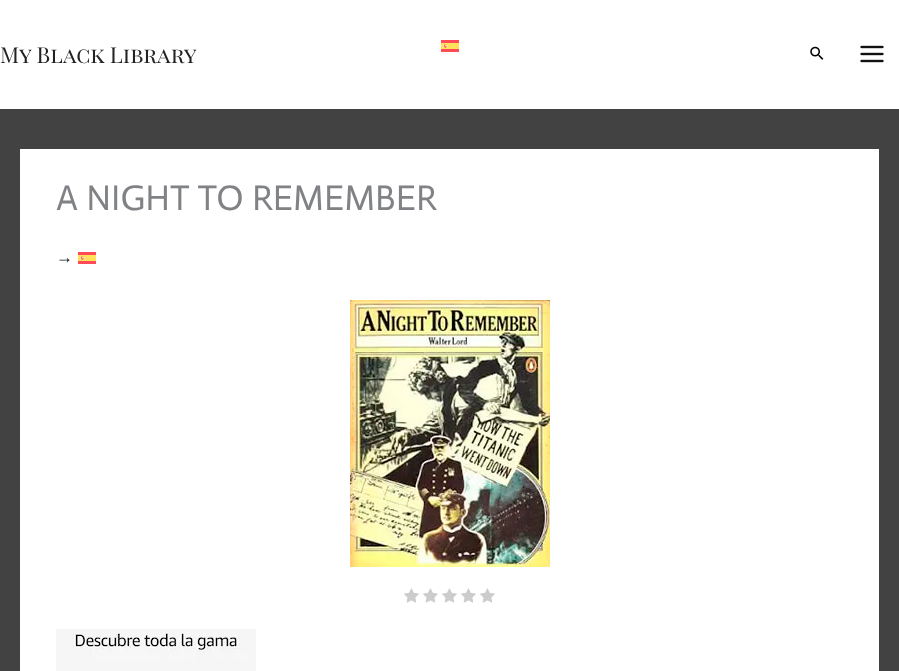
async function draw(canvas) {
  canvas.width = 899;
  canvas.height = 671;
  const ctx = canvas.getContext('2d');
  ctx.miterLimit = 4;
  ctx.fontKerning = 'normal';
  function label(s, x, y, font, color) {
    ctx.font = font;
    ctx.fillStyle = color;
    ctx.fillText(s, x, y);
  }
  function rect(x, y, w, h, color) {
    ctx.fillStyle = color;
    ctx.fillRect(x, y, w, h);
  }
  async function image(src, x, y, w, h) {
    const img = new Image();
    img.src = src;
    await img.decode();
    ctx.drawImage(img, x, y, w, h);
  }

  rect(0, 0, 899, 671, '#424242');
  rect(0, 0, 899, 109, '#fff');
  label('My Black Library', 0, 63, '22px Playfair Display SC', '#222');
  await image('assets/img1.png', 441, 40, 18, 12);
  await image('assets/img2.png', 810, 46, 14, 14);
  await image('assets/img3.png', 860, 45, 24, 18);
  rect(20, 149, 859, 522, '#fff');
  label('A NIGHT TO REMEMBER', 56, 210, '36px Actor', '#808285');
  label('→', 56, 263, '17px Liberation Sans', '#121212');
  await image('assets/img1.png', 78, 252, 18, 12);
  await image('assets/img4.png', 350, 300, 200, 267);
  await image('assets/img5.png', 404, 588, 15, 15);
  await image('assets/img5.png', 423, 588, 15, 15);
  await image('assets/img5.png', 442, 588, 15, 15);
  await image('assets/img5.png', 461, 588, 15, 15);
  await image('assets/img5.png', 480, 588, 15, 15);
  await image('assets/img6.png', 56, 629, 200, 42);
}

draw(document.querySelector('canvas'));
